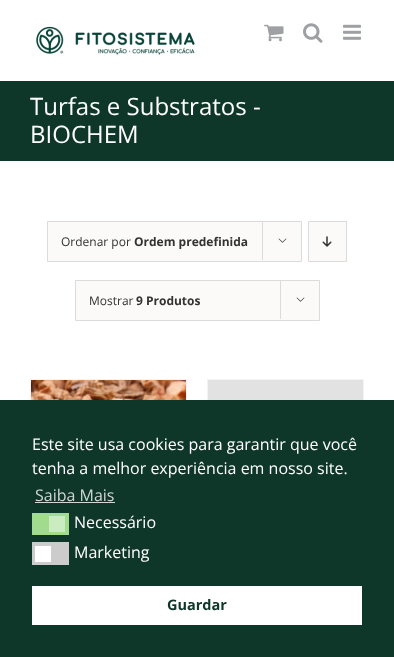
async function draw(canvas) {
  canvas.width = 394;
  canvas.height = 657;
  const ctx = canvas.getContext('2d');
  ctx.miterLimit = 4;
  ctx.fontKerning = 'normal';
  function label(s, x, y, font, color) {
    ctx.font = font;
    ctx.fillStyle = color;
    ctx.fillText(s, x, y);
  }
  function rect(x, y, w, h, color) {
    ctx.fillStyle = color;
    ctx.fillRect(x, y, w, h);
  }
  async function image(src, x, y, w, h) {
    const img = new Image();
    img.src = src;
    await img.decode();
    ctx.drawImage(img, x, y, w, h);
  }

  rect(0, 0, 394, 657, '#fff');
  await image('assets/img1.png', 36, 26, 159, 29);
  await image('assets/img2.png', 264, 24, 20, 18);
  await image('assets/img3.png', 303, 23, 20, 20);
  await image('assets/img4.png', 343, 24, 18, 16);
  rect(0, 81, 394, 80, '#0e3629');
  label('Turfas e Substratos -', 30, 115, '24px Open Sans', '#fff');
  label('BIOCHEM', 30, 143, '24px Open Sans', '#fff');
  ctx.fillStyle = '#fbfaf9';
  ctx.beginPath();
  ctx.rect(47.5, 221.5, 254, 40);
  ctx.fill();
  ctx.strokeStyle = '#dbdbdb';
  ctx.stroke();
  label('Ordenar por', 61, 246, '12px Open Sans', '#333');
  label('Ordem predefinida', 134, 246, 'bold 12px Open Sans', '#333');
  rect(262, 221, 1, 39, '#dbdbdb');
  await image('assets/img5.png', 278, 238, 9, 5);
  ctx.fillStyle = '#fbfaf9';
  ctx.beginPath();
  ctx.rect(308.5, 221.5, 38, 40);
  ctx.fill();
  ctx.stroke();
  await image('assets/img6.png', 322, 236, 10, 11);
  ctx.beginPath();
  ctx.rect(75.5, 280.5, 244, 40);
  ctx.fill();
  ctx.stroke();
  label('Mostrar', 89, 305, '12px Open Sans', '#333');
  label('9 Produtos', 136, 305, 'bold 12px Open Sans', '#333');
  rect(280, 280, 1, 39, '#dbdbdb');
  await image('assets/img5.png', 296, 297, 9, 5);
  rect(30, 379, 157, 1, '#f2f3f5');
  rect(186, 379, 1, 21, '#f2f3f5');
  rect(30, 379, 1, 21, '#f2f3f5');
  await image('assets/img7.png', 31, 380, 155, 20);
  rect(207, 379, 157, 1, '#f2f3f5');
  rect(363, 379, 1, 21, '#f2f3f5');
  rect(207, 379, 1, 21, '#f2f3f5');
  rect(208, 380, 155, 20, '#e2e2e2');
  rect(0, 400, 394, 257, '#0e3629');
  label('Este site usa cookies para garantir que você', 32, 450, '16px Open Sans', '#fff');
  label('tenha a melhor experiência em nosso site.', 32, 474, '16px Open Sans', '#fff');
  label('Saiba Mais', 35, 501, '16px Open Sans', '#cfd7d4');
  rect(35, 502, 80, 1, '#cfd7d4');
  rect(32, 513, 37, 22, '#a0db8e');
  rect(49, 516, 16, 16, '#cbebc1');
  label('Necessário', 74, 528, '16px Open Sans', '#fff');
  rect(32, 542, 37, 23, '#ccc');
  rect(35, 546, 16, 16, '#fff');
  label('Marketing', 74, 558, '16px Open Sans', '#fff');
  rect(32, 586, 330, 39, '#fff');
  label('Guardar', 167, 610, 'bold 14.5px Open Sans', '#0e3629');
}

draw(document.querySelector('canvas'));
